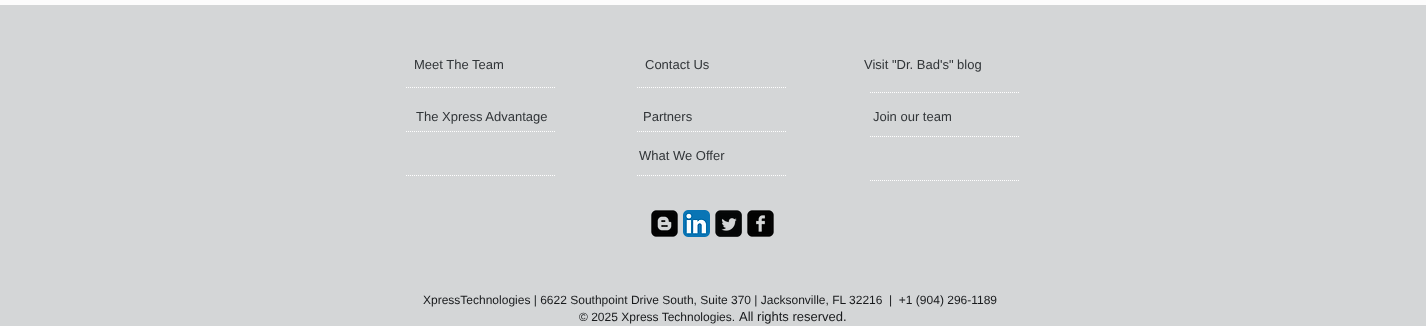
async function draw(canvas) {
  canvas.width = 1426;
  canvas.height = 326;
  const ctx = canvas.getContext('2d');
  ctx.miterLimit = 4;
  ctx.fontKerning = 'normal';
  function label(s, x, y, font, color) {
    ctx.font = font;
    ctx.fillStyle = color;
    ctx.fillText(s, x, y);
  }
  function rect(x, y, w, h, color) {
    ctx.fillStyle = color;
    ctx.fillRect(x, y, w, h);
  }
  async function image(src, x, y, w, h) {
    const img = new Image();
    img.src = src;
    await img.decode();
    ctx.drawImage(img, x, y, w, h);
  }
  let path;

  rect(0, 0, 1426, 326, '#d4d6d7');
  rect(0, 0, 1426, 5, '#fcfcfc');
  label('Meet The Team', 414, 69, '13px Liberation Sans', '#313538');
  label('Contact Us', 645, 69, '13px Liberation Sans', '#313538');
  path = new Path2D('M406 87.5H556');
  ctx.strokeStyle = '#fff';
  ctx.setLineDash([1, 1]);
  ctx.stroke(path);
  path = new Path2D('M637 87.5H787');
  ctx.stroke(path);
  path = new Path2D('M870 92.5H1020');
  ctx.stroke(path);
  label('The Xpress Advantage', 416, 121, '13px Liberation Sans', '#313538');
  label('Partners', 643, 121, '13px Liberation Sans', '#313538');
  label('Join our team', 873, 121, '13px Liberation Sans', '#313538');
  path = new Path2D('M406 131.5H556');
  ctx.stroke(path);
  path = new Path2D('M637 131.5H787');
  ctx.stroke(path);
  path = new Path2D('M870 136.5H1020');
  ctx.stroke(path);
  label('What We Offer', 639, 160, '13px Liberation Sans', '#313538');
  path = new Path2D('M406 175.5H556');
  ctx.stroke(path);
  path = new Path2D('M637 175.5H787');
  ctx.stroke(path);
  path = new Path2D('M870 180.5H1020');
  ctx.stroke(path);
  label('Visit "Dr. Bad\'s" blog', 864, 69, '13px Liberation Sans', '#313538');
  await image('assets/img1.png', 651, 210, 27, 27);
  await image('assets/img2.png', 683, 210, 27, 27);
  await image('assets/img3.png', 715, 210, 27, 27);
  await image('assets/img4.png', 747, 210, 27, 27);
  label('XpressTechnologies | 6622 Southpoint Drive South, Suite 370 | Jacksonville, FL 32216  |  +1 (904) 296-1189', 423, 304, '12px Liberation Sans', '#181a1c');
  label('© 2025 Xpress Technologies.', 579, 321, '12px Liberation Sans', '#181a1c');
  label('All rights reserved.', 739, 321, '13px Liberation Sans', '#181a1c');
}

draw(document.querySelector('canvas'));
